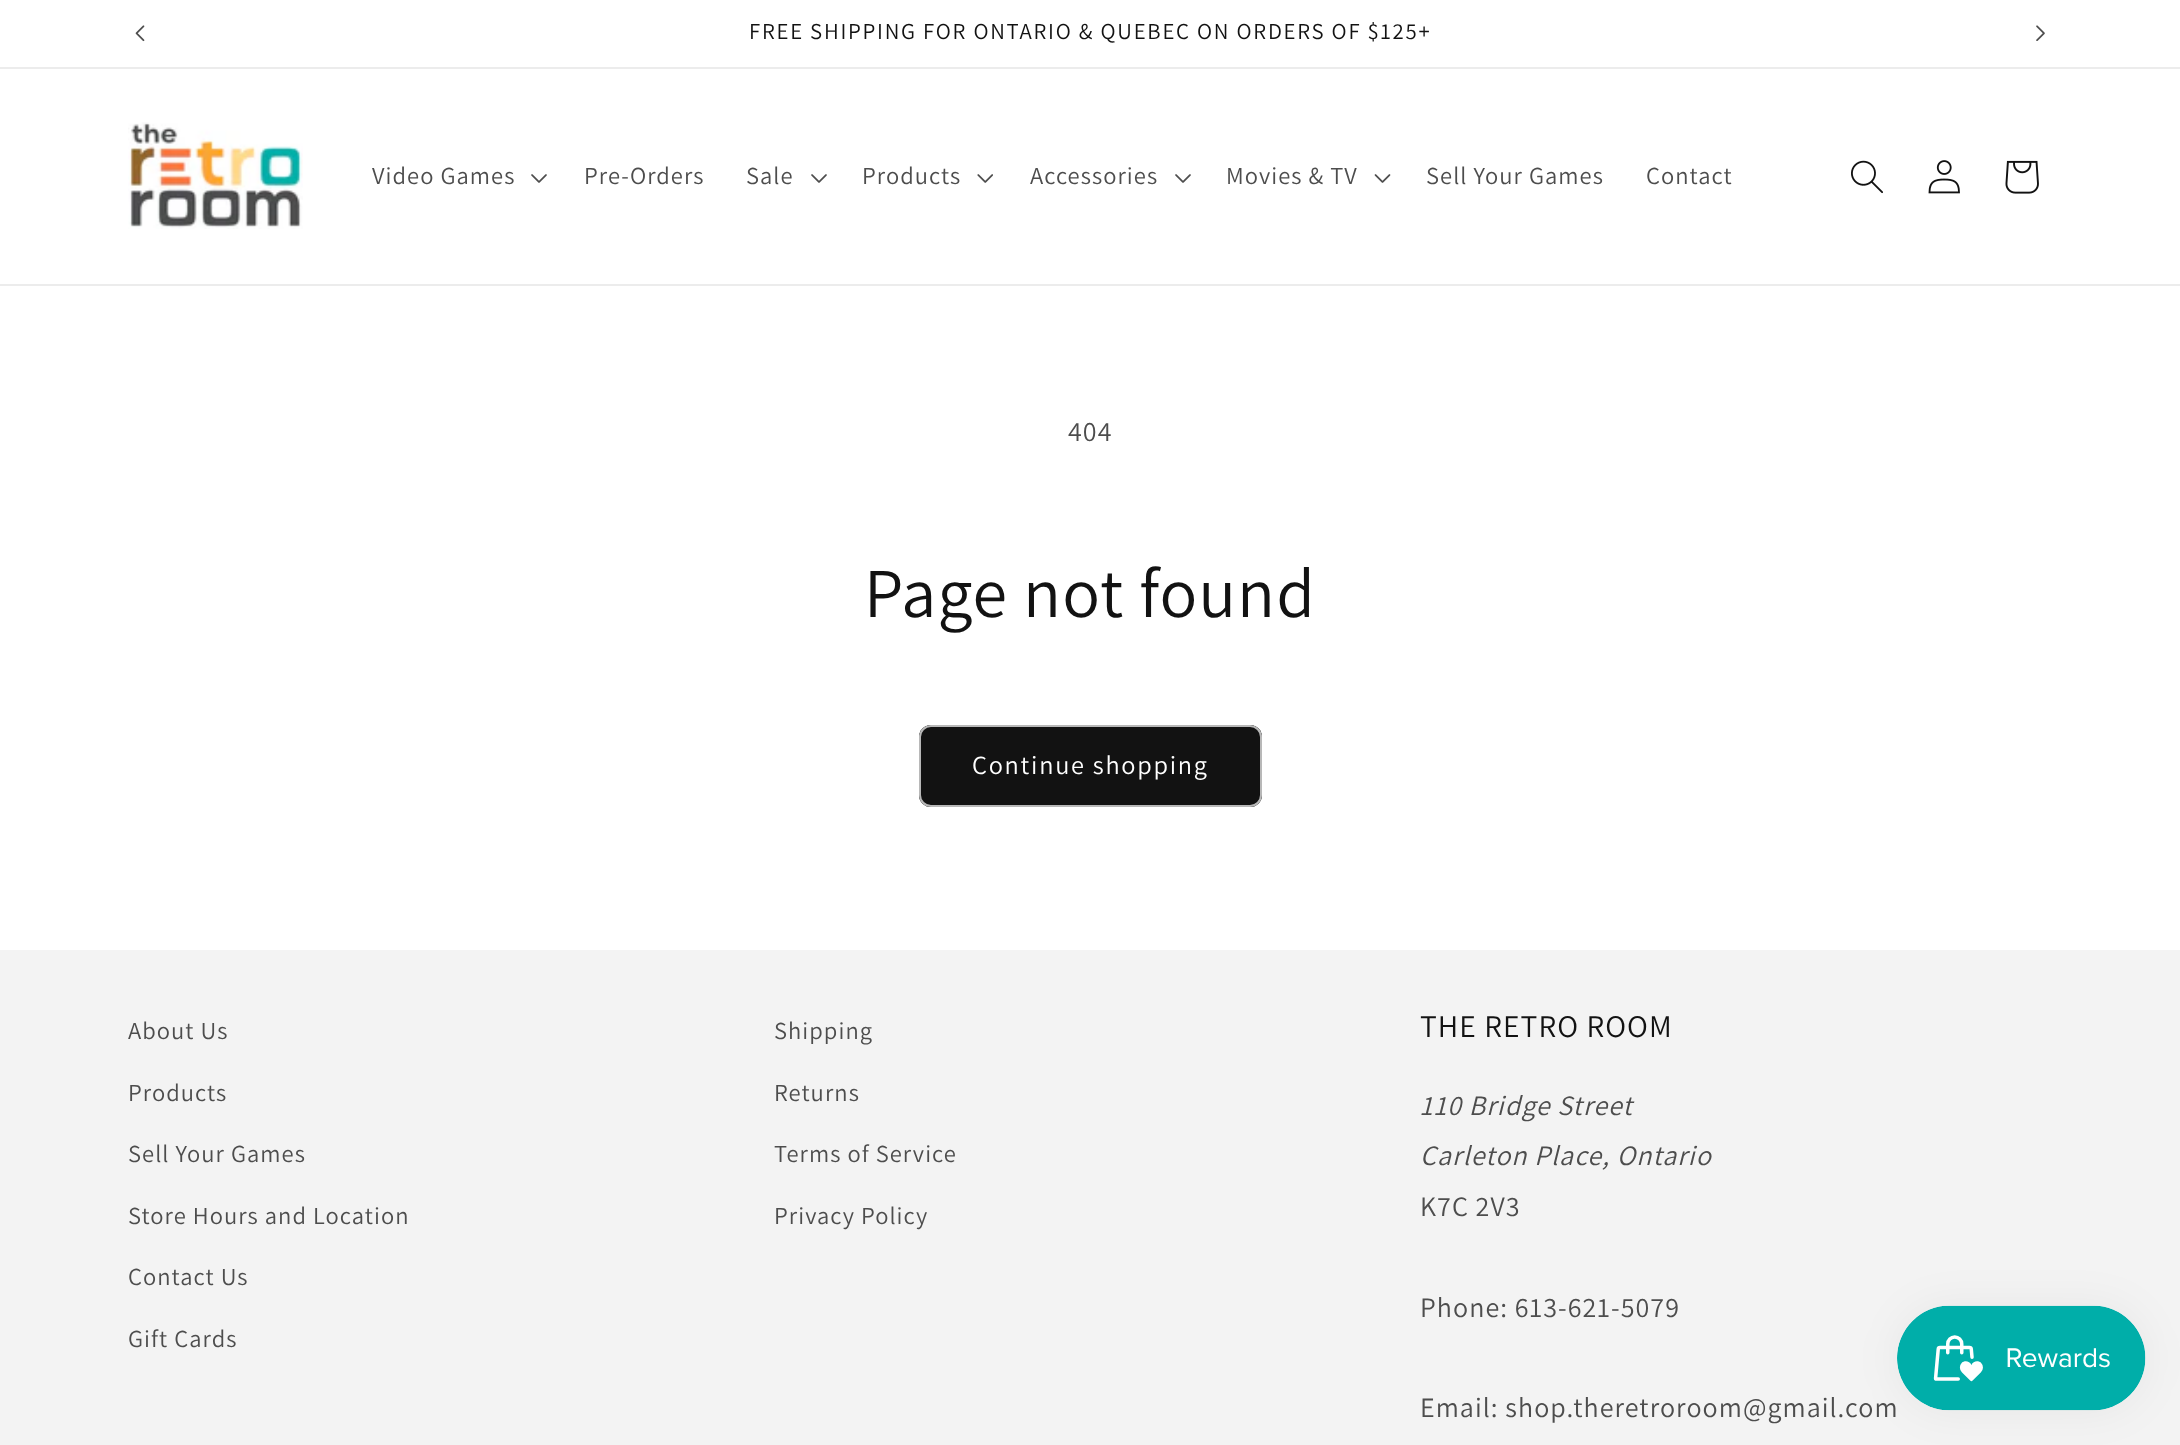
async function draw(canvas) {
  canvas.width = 2180;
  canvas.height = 1445;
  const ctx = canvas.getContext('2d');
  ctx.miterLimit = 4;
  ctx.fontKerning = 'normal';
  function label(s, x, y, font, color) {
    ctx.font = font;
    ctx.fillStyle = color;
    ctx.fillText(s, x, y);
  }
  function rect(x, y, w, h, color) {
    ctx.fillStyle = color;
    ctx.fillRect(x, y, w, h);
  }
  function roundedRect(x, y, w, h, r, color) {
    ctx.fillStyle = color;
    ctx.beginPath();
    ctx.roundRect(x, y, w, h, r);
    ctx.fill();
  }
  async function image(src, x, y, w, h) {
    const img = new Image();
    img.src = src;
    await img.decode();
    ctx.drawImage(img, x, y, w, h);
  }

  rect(0, 0, 2180, 1445, '#fff');
  rect(0, 67, 2180, 2, '#ececec');
  await image('assets/img1.png', 135, 25, 10, 17);
  ctx.letterSpacing = '1.75px';
  label('FREE SHIPPING FOR ONTARIO & QUEBEC ON ORDERS OF $125+', 749, 39, '22.75px Assistant', '#121212');
  await image('assets/img2.png', 2036, 25, 9, 16);
  rect(0, 284, 2180, 2, '#ececec');
  await image('assets/img3.png', 128, 122, 175, 107);
  ctx.letterSpacing = '1.05px';
  label('Video Games', 372, 184, '24.5px Assistant', '#4d4d4d');
  await image('assets/img4.png', 531, 174, 16, 9);
  label('Pre-Orders', 584, 184, '24.5px Assistant', '#4d4d4d');
  label('Sale', 746, 184, '24.5px Assistant', '#4d4d4d');
  await image('assets/img4.png', 811, 174, 16, 9);
  label('Products', 862, 184, '24.5px Assistant', '#4d4d4d');
  await image('assets/img5.png', 977, 174, 16, 9);
  label('Accessories', 1030, 184, '24.5px Assistant', '#4d4d4d');
  await image('assets/img4.png', 1175, 174, 16, 9);
  label('Movies & TV', 1226, 184, '24.5px Assistant', '#4d4d4d');
  await image('assets/img6.png', 1374, 174, 17, 9);
  label('Sell Your Games', 1426, 184, '24.5px Assistant', '#4d4d4d');
  label('Contact', 1646, 184, '24.5px Assistant', '#4d4d4d');
  await image('assets/img7.png', 1851, 160, 32, 34);
  await image('assets/img8.png', 1928, 160, 32, 34);
  await image('assets/img9.png', 2005, 160, 34, 34);
  label('404', 1068, 441, '28px Assistant', '#4d4d4d');
  label('Page not found', 864, 617, '70px Assistant', '#121212');
  roundedRect(919, 725, 343, 82, 12, '#121212');
  ctx.beginPath();
  ctx.roundRect(920, 726, 341, 80, 11);
  ctx.strokeStyle = '#121212';
  ctx.lineWidth = 2;
  ctx.stroke();
  ctx.beginPath();
  ctx.roundRect(920, 726, 341, 80, 11);
  ctx.strokeStyle = '#ffffffb3';
  ctx.stroke();
  ctx.letterSpacing = '1.75px';
  label('Continue shopping', 972, 774, '26.25px Assistant', '#fff');
  rect(0, 950, 2180, 495, '#f3f3f3');
  ctx.letterSpacing = '1.05px';
  label('About Us', 128, 1039, '24.5px Assistant', '#4d4d4d');
  label('Products', 128, 1101, '24.5px Assistant', '#4d4d4d');
  label('Sell Your Games', 128, 1162, '24.5px Assistant', '#4d4d4d');
  label('Store Hours and Location', 128, 1224, '24.5px Assistant', '#4d4d4d');
  label('Contact Us', 128, 1285, '24.5px Assistant', '#4d4d4d');
  label('Gift Cards', 128, 1347, '24.5px Assistant', '#4d4d4d');
  label('Shipping', 774, 1039, '24.5px Assistant', '#4d4d4d');
  label('Returns', 774, 1101, '24.5px Assistant', '#4d4d4d');
  label('Terms of Service', 774, 1162, '24.5px Assistant', '#4d4d4d');
  label('Privacy Policy', 774, 1224, '24.5px Assistant', '#4d4d4d');
  label('THE RETRO ROOM', 1420, 1037, '31.5px Assistant', '#121212');
  label('110 Bridge Street', 1420, 1115, 'italic 28px Assistant', '#4d4d4d');
  label('Carleton Place, Ontario', 1420, 1165, 'italic 28px Assistant', '#4d4d4d');
  label('K7C 2V3', 1420, 1216, '28px Assistant', '#4d4d4d');
  label('Phone: 613-621-5079', 1420, 1317, '28px Assistant', '#4d4d4d');
  label('Email: shop.theretroroom@gmail.com', 1420, 1417, '28px Assistant', '#4d4d4d');
  ctx.fillStyle = '#0000000d';
  ctx.filter = 'blur(22px)';
  ctx.beginPath();
  ctx.roundRect(1897, 1306, 249, 105, 52.5);
  ctx.fill();
  ctx.filter = 'none';
  await image('assets/img10.png', 1897, 1305, 249, 106);
}

draw(document.querySelector('canvas'));
